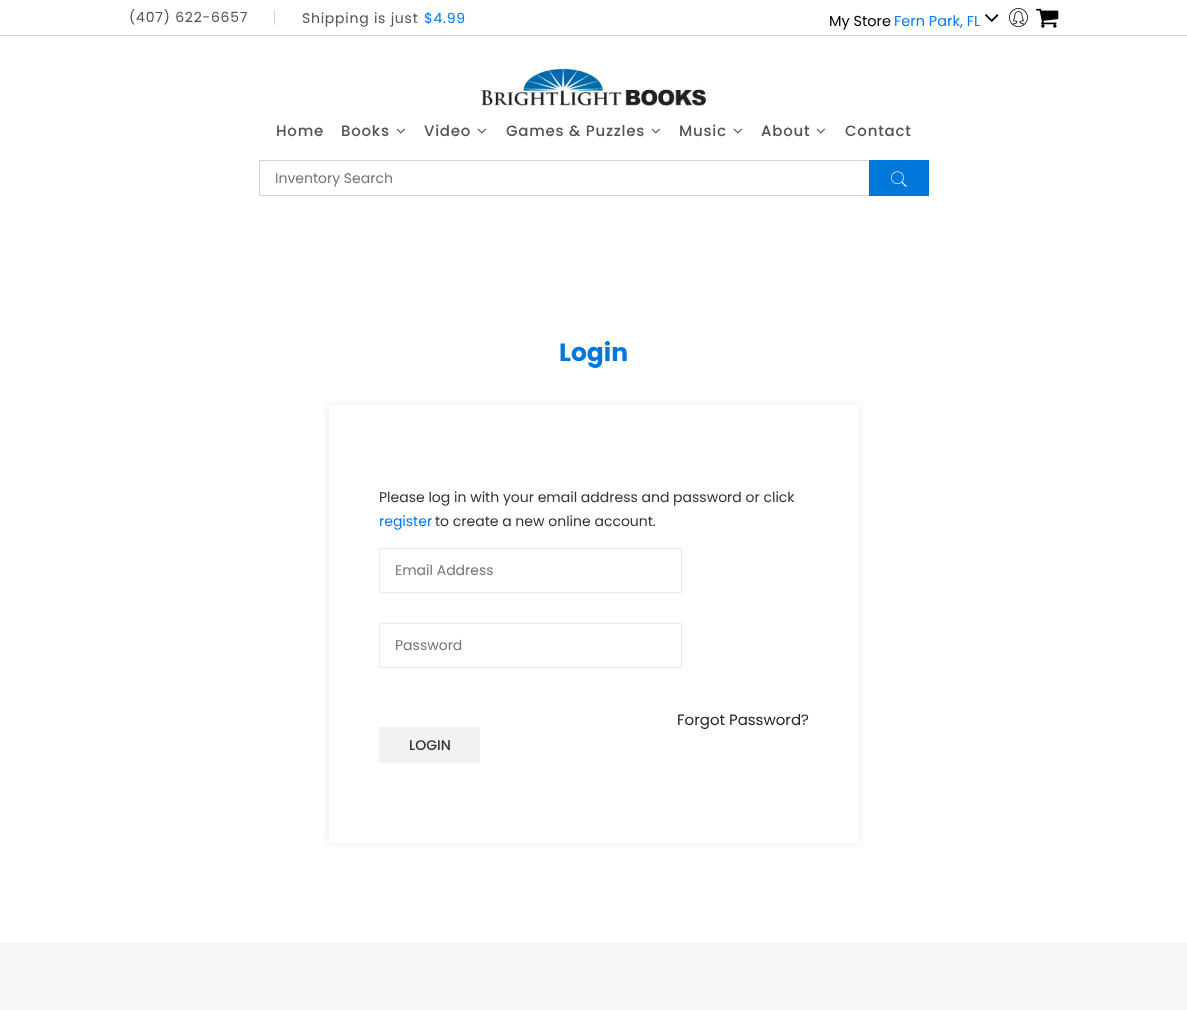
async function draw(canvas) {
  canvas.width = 1187;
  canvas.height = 1010;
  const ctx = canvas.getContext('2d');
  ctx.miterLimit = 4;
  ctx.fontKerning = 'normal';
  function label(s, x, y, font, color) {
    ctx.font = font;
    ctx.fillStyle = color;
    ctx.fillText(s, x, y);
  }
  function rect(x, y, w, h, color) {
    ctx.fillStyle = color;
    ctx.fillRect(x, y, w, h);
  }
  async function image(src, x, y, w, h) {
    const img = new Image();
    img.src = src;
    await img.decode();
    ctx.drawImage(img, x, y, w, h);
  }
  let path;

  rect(0, 0, 1187, 1010, '#fff');
  rect(0, 35, 1187, 1, '#d5d4d4');
  ctx.letterSpacing = '0.75px';
  label('(407) 622-6657', 129, 22, '14px Poppins', '#555252');
  rect(274, 10, 1, 15, '#d5d4d4');
  label('Shipping is just', 302, 23, '14px Poppins', '#555252');
  label('$4.99', 424, 23, '14px Poppins', '#007bff');
  ctx.letterSpacing = '0px';
  label('My Store', 829, 26, '14.5px Poppins', '#000');
  label('Fern Park, FL', 894, 26, '14.5px Poppins', '#007bff');
  await image('assets/img1.png', 985, 14, 14, 8);
  await image('assets/img2.png', 1009, 8, 19, 19);
  await image('assets/img3.png', 1036, 8, 23, 20);
  await image('assets/img4.png', 481, 68, 226, 38);
  ctx.letterSpacing = '0.75px';
  label('Home', 276, 136, '500 15px Poppins', '#555252');
  label('Books', 341, 136, '500 15px Poppins', '#555252');
  await image('assets/img5.png', 396, 128, 9, 6);
  label('Video', 424, 136, '500 15px Poppins', '#555252');
  await image('assets/img5.png', 477, 128, 9, 6);
  label('Games & Puzzles', 506, 136, '500 15px Poppins', '#555252');
  await image('assets/img5.png', 651, 128, 9, 6);
  label('Music', 679, 136, '500 15px Poppins', '#555252');
  await image('assets/img5.png', 733, 128, 9, 6);
  label('About', 761, 136, '500 15px Poppins', '#555252');
  await image('assets/img5.png', 816, 128, 9, 6);
  label('Contact', 845, 136, '500 15px Poppins', '#555252');
  ctx.strokeStyle = '#d3d3d3';
  ctx.strokeRect(259.5, 160.5, 669, 35);
  ctx.letterSpacing = '0px';
  label('Inventory Search', 275, 183, '14px Poppins', '#757575');
  rect(869, 160, 60, 36, '#0078db');
  await image('assets/img6.png', 891, 171, 16, 16);
  label('Login', 559, 361, 'bold 25px Poppins', '#0078db');
  ctx.save();
  path = new Path2D('M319 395H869V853H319ZM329 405H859V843H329Z');
  ctx.clip(path, 'evenodd');
  ctx.fillStyle = '#0000001a';
  ctx.filter = 'blur(3px)';
  ctx.beginPath();
  ctx.rect(329, 405, 530, 438);
  ctx.fill();
  ctx.filter = 'none';
  ctx.restore();
  label('Please log in with your email address and password or click', 379, 502, '14px Poppins', '#333');
  label('register', 379, 526, '14px Poppins', '#007bff');
  label('to create a new online account.', 435, 526, '14px Poppins', '#333');
  ctx.strokeStyle = '#ebebeb';
  ctx.strokeRect(379.5, 548.5, 302, 44);
  label('Email Address', 395, 575, '14px Poppins', '#757575');
  ctx.strokeRect(379.5, 623.5, 302, 44);
  label('Password', 395, 650, '14px Poppins', '#757575');
  label('Forgot Password?', 677, 725, '15px Poppins', '#242424');
  rect(379, 727, 101, 36, '#f2f2f2');
  label('LOGIN', 409, 750, '500 14px Poppins', '#333');
  rect(0, 943, 1187, 67, '#f6f6f8');
}

draw(document.querySelector('canvas'));
